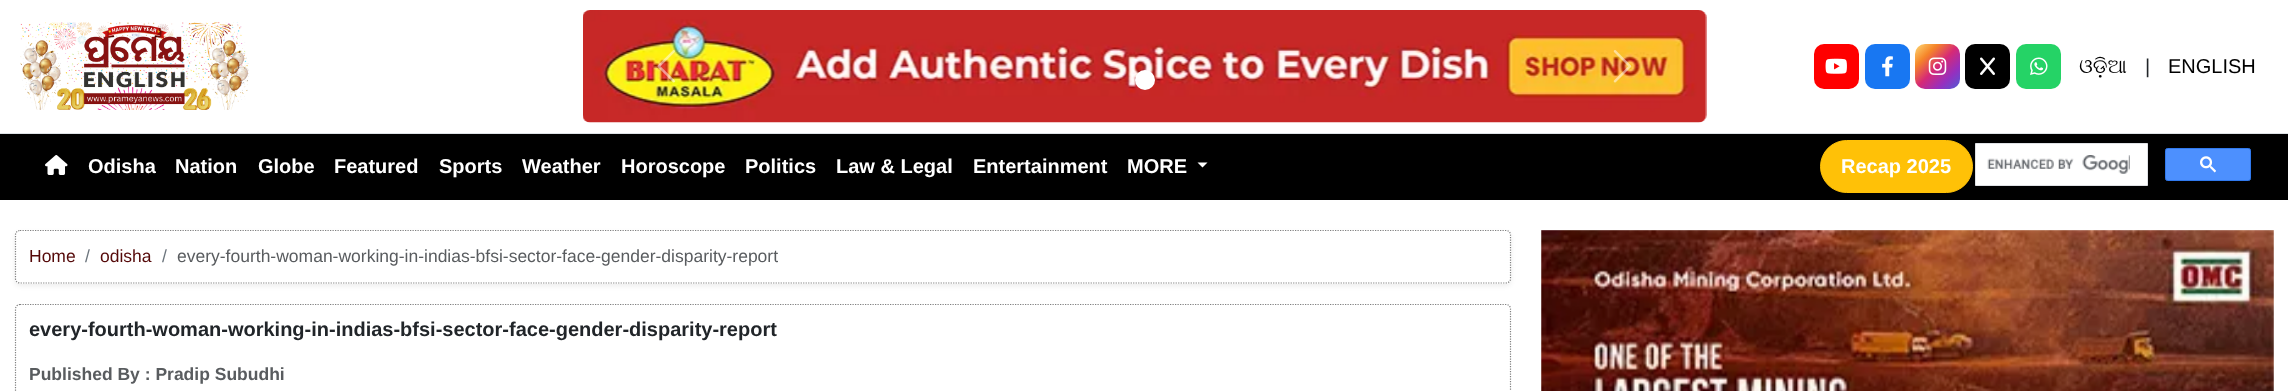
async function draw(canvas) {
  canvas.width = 2288;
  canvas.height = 391;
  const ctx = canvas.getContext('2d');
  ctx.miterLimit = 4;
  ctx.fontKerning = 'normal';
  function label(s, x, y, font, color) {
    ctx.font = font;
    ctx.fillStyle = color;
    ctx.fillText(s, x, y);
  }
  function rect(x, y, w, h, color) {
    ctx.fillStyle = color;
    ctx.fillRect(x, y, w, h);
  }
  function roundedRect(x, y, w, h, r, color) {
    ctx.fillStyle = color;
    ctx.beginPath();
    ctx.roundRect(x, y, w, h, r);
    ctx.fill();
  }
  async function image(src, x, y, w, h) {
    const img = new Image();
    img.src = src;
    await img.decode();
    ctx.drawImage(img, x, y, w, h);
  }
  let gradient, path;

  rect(0, 0, 2288, 391, '#fff');
  rect(0, 133, 2288, 1, '#dee2e6');
  await image('assets/img1.png', 20, 22, 229, 88);
  await image('assets/img2.png', 583, 10, 1124, 113);
  await image('assets/img3.png', 657, 50, 18, 33);
  ctx.fillStyle = '#fff';
  ctx.beginPath();
  ctx.arc(1145, 80, 10, 0, 2 * Math.PI);
  ctx.fill();
  await image('assets/img4.png', 1613, 50, 19, 33);
  roundedRect(1814, 44, 45, 45, 10, '#f00');
  await image('assets/img5.png', 1825, 58, 22, 16);
  roundedRect(1865, 44, 45, 45, 10, '#1877f2');
  await image('assets/img6.png', 1882, 56, 11, 21);
  gradient = ctx.createLinearGradient(1915, 44, 1960, 89);
  gradient.addColorStop(0, '#feda75');
  gradient.addColorStop(0.25, '#f58529');
  gradient.addColorStop(0.5, '#d62976');
  gradient.addColorStop(0.75, '#962fbf');
  gradient.addColorStop(1, '#4f5bd5');
  ctx.fillStyle = gradient;
  ctx.beginPath();
  ctx.roundRect(1915, 44, 45, 45, 10);
  ctx.fill();
  await image('assets/img7.png', 1928, 57, 19, 18);
  roundedRect(1965, 44, 45, 45, 10, '#000');
  await image('assets/img8.png', 1980, 57, 15, 18);
  roundedRect(2016, 44, 45, 45, 10, '#25d366');
  await image('assets/img9.png', 2030, 57, 18, 18);
  label('ଓଡ଼ିଆ', 2079, 73, '20px FreeSerif', '#000');
  label('|', 2145, 73, '20px Liberation Sans', '#212529');
  label('ENGLISH', 2168, 73, '20px Liberation Sans', '#000');
  rect(0, 134, 2288, 66, '#000');
  await image('assets/img10.png', 45, 155, 23, 20);
  label('Odisha', 88, 173, 'bold 20px Liberation Sans', '#fff');
  label('Nation', 175, 173, 'bold 20px Liberation Sans', '#fff');
  label('Globe', 258, 173, 'bold 20px Liberation Sans', '#fff');
  label('Featured', 334, 173, 'bold 20px Liberation Sans', '#fff');
  label('Sports', 439, 173, 'bold 20px Liberation Sans', '#fff');
  label('Weather', 522, 173, 'bold 20px Liberation Sans', '#fff');
  label('Horoscope', 621, 173, 'bold 20px Liberation Sans', '#fff');
  label('Politics', 745, 173, 'bold 20px Liberation Sans', '#fff');
  label('Law & Legal', 836, 173, 'bold 20px Liberation Sans', '#fff');
  label('Entertainment', 973, 173, 'bold 20px Liberation Sans', '#fff');
  label('MORE', 1127, 173, 'bold 20px Liberation Sans', '#fff');
  path = new Path2D('M1197.5 162.5H1207.5L1202.5 167.5Z');
  ctx.fill(path);
  ctx.fillStyle = '#ffc107';
  ctx.beginPath();
  ctx.roundRect(1820.5, 140.5, 152, 52, 26);
  ctx.fill();
  ctx.strokeStyle = '#ffc107';
  ctx.stroke();
  label('Recap 2025', 1841, 173, 'bold 20px Liberation Sans', '#fff');
  ctx.beginPath();
  ctx.rect(1975.5, 143.5, 172, 42);
  ctx.fill();
  ctx.strokeStyle = '#dfe1e5';
  ctx.stroke();
  await image('assets/img11.png', 1987, 155, 143, 19);
  ctx.fillStyle = '#4d90fe';
  ctx.beginPath();
  ctx.roundRect(2165.5, 148.5, 85, 32, 2);
  ctx.fill();
  ctx.strokeStyle = '#3079ed';
  ctx.stroke();
  await image('assets/img12.png', 2200, 156, 16, 17);
  ctx.fillStyle = '#00000012';
  ctx.filter = 'blur(2.5px)';
  ctx.beginPath();
  ctx.roundRect(15, 233, 1496, 53, 5);
  ctx.fill();
  ctx.filter = 'none';
  roundedRect(15, 230, 1496, 54, 5, '#fff');
  path = new Path2D('M20 230.5H1506C1508.5 230.5 1510.5 232.5 1510.5 235V279C1510.5 281 1508.5 283 1506 283H20C17.5 283 15.5 281 15.5 279V235C15.5 232.5 17.5 230.5 20 230.5Z');
  ctx.strokeStyle = '#808080';
  ctx.lineWidth = 1.2;
  ctx.setLineDash([1.25, 1.25]);
  ctx.stroke(path);
  label('Home', 29, 262, '17.5px Liberation Sans', '#550909');
  label('/', 85, 262, '17.5px Liberation Sans', '#6c757d');
  label('odisha', 100, 262, '17.5px Liberation Sans', '#550909');
  label('/', 162, 262, '17.5px Liberation Sans', '#6c757d');
  label('every-fourth-woman-working-in-indias-bfsi-sector-face-gender-disparity-report', 177, 262, '17.5px Liberation Sans', '#595c5f');
  path = new Path2D('M20 304.5H1506C1508.5 304.5 1510.5 306.5 1510.5 309V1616C1510.5 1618.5 1508.5 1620.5 1506 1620.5H20C17.5 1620.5 15.5 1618.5 15.5 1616V309C15.5 306.5 17.5 304.5 20 304.5Z');
  ctx.stroke(path);
  label('every-fourth-woman-working-in-indias-bfsi-sector-face-gender-disparity-report', 29, 336, 'bold 20px Liberation Sans', '#212529');
  label('Published By : Pradip Subudhi', 29, 380, 'bold 17.5px Liberation Sans', '#595c5f');
  await image('assets/img13.png', 1541, 230, 733, 161);
}

draw(document.querySelector('canvas'));
